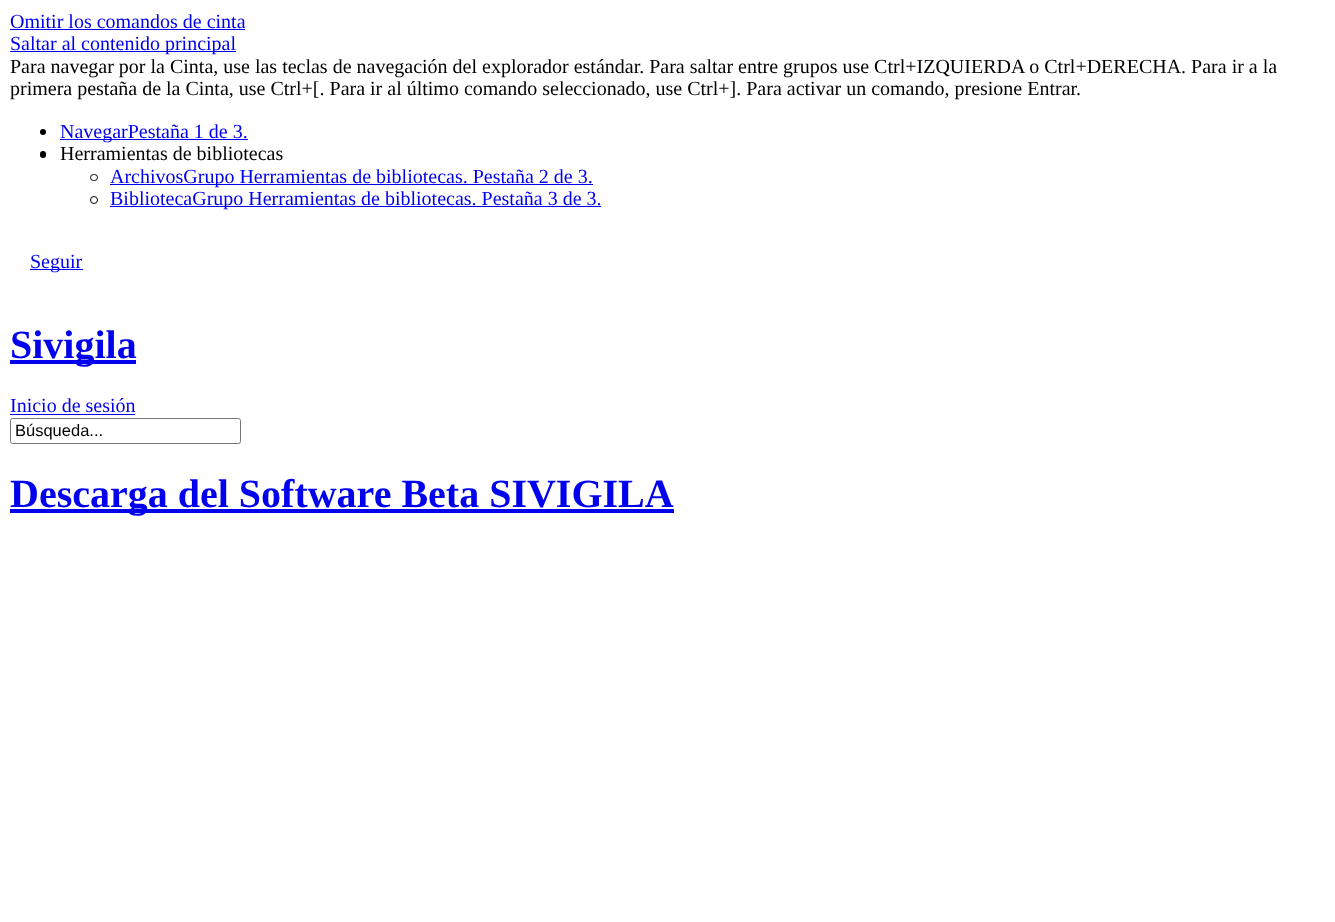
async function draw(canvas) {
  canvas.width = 1335;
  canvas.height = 922;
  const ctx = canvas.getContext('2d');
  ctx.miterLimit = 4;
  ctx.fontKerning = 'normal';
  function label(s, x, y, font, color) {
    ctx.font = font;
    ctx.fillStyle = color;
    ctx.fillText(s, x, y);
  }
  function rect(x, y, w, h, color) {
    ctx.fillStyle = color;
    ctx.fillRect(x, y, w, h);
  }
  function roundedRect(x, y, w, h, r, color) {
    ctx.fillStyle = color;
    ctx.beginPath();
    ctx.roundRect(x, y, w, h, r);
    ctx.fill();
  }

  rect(0, 0, 1335, 922, '#fff');
  label('Omitir los comandos de cinta', 10, 28, '20px Liberation Serif', '#00e');
  rect(10, 29, 235, 1, '#00e');
  rect(10, 51, 226, 1, '#00e');
  label('Saltar al contenido principal', 10, 50, '20px Liberation Serif', '#00e');
  label('Para navegar por la Cinta, use las teclas de navegación del explorador estándar. Para saltar entre grupos use Ctrl+IZQUIERDA o Ctrl+DERECHA. Para ir a la', 10, 73, '20px Liberation Serif', '#000');
  label('primera pestaña de la Cinta, use Ctrl+[. Para ir al último comando seleccionado, use Ctrl+]. Para activar un comando, presione Entrar.', 10, 95, '20px Liberation Serif', '#000');
  ctx.beginPath();
  ctx.arc(43, 132, 3, 0, 2 * Math.PI);
  ctx.fill();
  rect(60, 139, 188, 1, '#00e');
  label('NavegarPestaña 1 de 3.', 60, 138, '20px Liberation Serif', '#00e');
  roundedRect(40, 151, 6, 7, 3, '#000');
  label('Herramientas de bibliotecas', 60, 160, '20px Liberation Serif', '#000');
  ctx.beginPath();
  ctx.roundRect(90.5, 174.5, 7, 6, 3);
  ctx.strokeStyle = '#000';
  ctx.stroke();
  rect(110, 184, 483, 1, '#00e');
  label('ArchivosGrupo Herramientas de bibliotecas. Pestaña 2 de 3.', 110, 183, '20px Liberation Serif', '#00e');
  ctx.beginPath();
  ctx.arc(94, 200, 3.5, 0, 2 * Math.PI);
  ctx.stroke();
  rect(110, 206, 491, 1, '#00e');
  label('BibliotecaGrupo Herramientas de bibliotecas. Pestaña 3 de 3.', 110, 205, '20px Liberation Serif', '#00e');
  rect(30, 269, 53, 1, '#00e');
  label('Seguir', 30, 268, '20px Liberation Serif', '#00e');
  rect(10, 360, 126, 4, '#00e');
  label('Sivigila', 10, 358, 'bold 40px Liberation Serif', '#00e');
  label('Inicio de sesión', 10, 412, '20px Liberation Serif', '#00e');
  rect(10, 414, 125, 1, '#00e');
  ctx.beginPath();
  ctx.roundRect(10.5, 418.5, 230, 25, 2);
  ctx.strokeStyle = '#767676';
  ctx.stroke();
  label('Búsqueda...', 15, 436, '16.5px Liberation Sans', '#000');
  rect(10, 509, 664, 4, '#00e');
  label('Descarga del Software Beta SIVIGILA', 10, 507, 'bold 40px Liberation Serif', '#00e');
}

draw(document.querySelector('canvas'));
